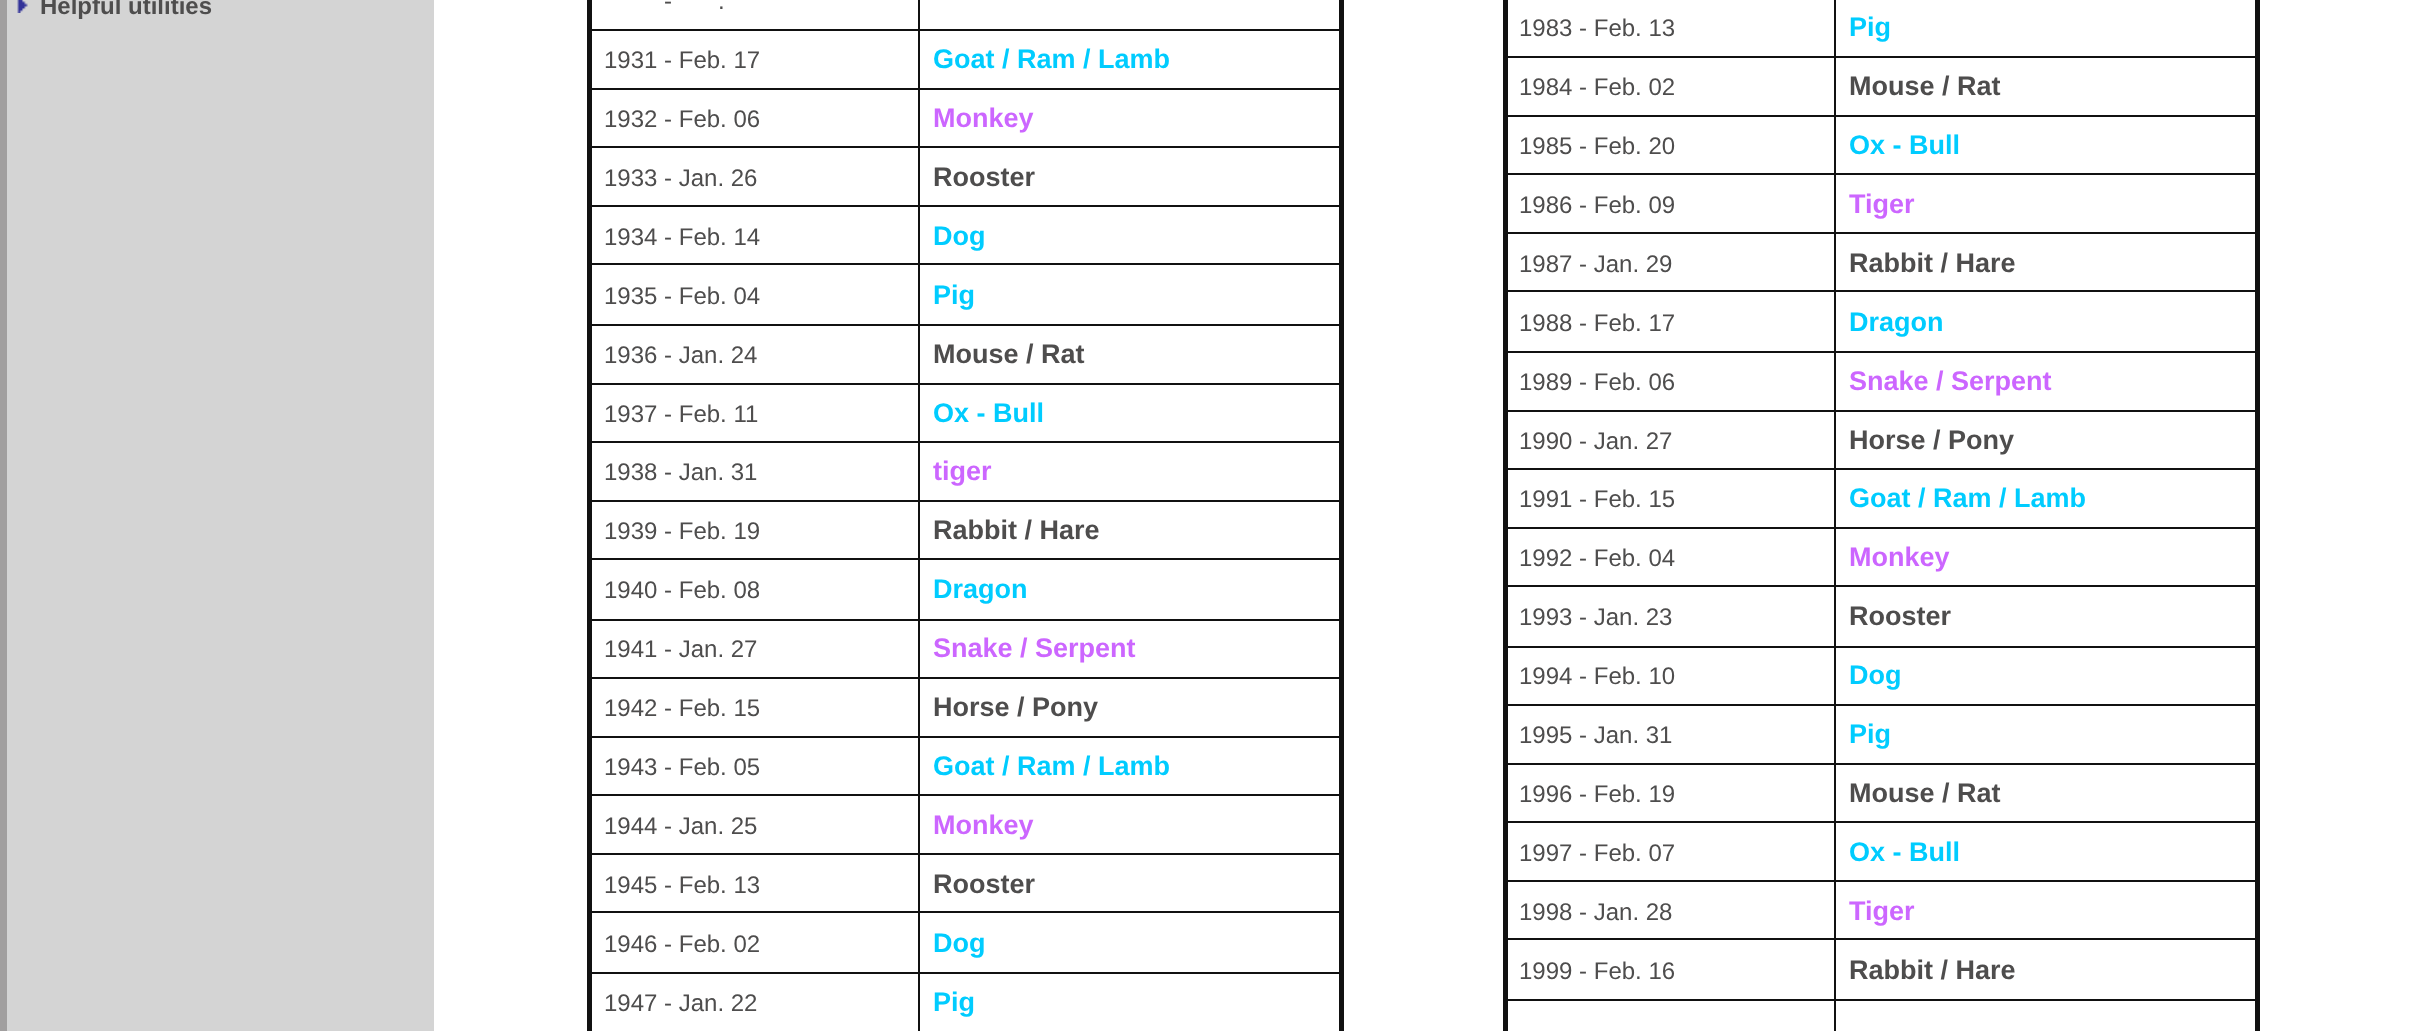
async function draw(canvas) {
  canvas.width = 2421;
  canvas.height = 1031;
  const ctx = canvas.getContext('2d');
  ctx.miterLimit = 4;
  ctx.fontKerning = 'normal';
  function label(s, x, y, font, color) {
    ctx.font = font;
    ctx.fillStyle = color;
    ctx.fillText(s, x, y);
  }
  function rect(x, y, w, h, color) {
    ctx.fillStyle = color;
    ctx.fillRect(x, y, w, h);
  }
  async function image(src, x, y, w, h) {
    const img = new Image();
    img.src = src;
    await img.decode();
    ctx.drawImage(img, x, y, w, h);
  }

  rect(0, 0, 2421, 1031, '#fff');
  rect(0, 0, 7, 1031, '#a19f9f');
  rect(7, 0, 427, 1031, '#d4d4d4');
  await image('assets/img1.png', 17, 0, 11, 13);
  label('Helpful utilities', 40, 14, 'bold 24px Liberation Sans', '#4e4d4d');
  rect(918, 29, 423, 2, '#111');
  rect(918, 88, 423, 2, '#111');
  rect(918, 146, 423, 2, '#111');
  rect(918, 205, 423, 2, '#111');
  rect(918, 263, 423, 2, '#111');
  rect(918, 324, 423, 2, '#111');
  rect(918, 383, 423, 2, '#111');
  rect(918, 441, 423, 2, '#111');
  rect(918, 500, 423, 2, '#111');
  rect(918, 558, 423, 2, '#111');
  rect(918, 619, 423, 2, '#111');
  rect(918, 677, 423, 2, '#111');
  rect(918, 736, 423, 2, '#111');
  rect(918, 794, 423, 2, '#111');
  rect(918, 853, 423, 2, '#111');
  rect(918, 911, 423, 2, '#111');
  rect(918, 972, 423, 2, '#111');
  rect(1339, 0, 5, 1031, '#111');
  rect(918, 972, 2, 59, '#111');
  rect(587, 972, 333, 2, '#111');
  rect(918, 911, 2, 63, '#111');
  rect(587, 911, 333, 2, '#111');
  rect(918, 853, 2, 61, '#111');
  rect(587, 853, 333, 2, '#111');
  rect(918, 794, 2, 61, '#111');
  rect(587, 794, 333, 2, '#111');
  rect(918, 736, 2, 61, '#111');
  rect(587, 736, 333, 2, '#111');
  rect(918, 677, 2, 61, '#111');
  rect(587, 677, 333, 2, '#111');
  rect(918, 619, 2, 61, '#111');
  rect(587, 619, 333, 2, '#111');
  rect(918, 558, 2, 63, '#111');
  rect(587, 558, 333, 2, '#111');
  rect(918, 500, 2, 60, '#111');
  rect(587, 500, 333, 2, '#111');
  rect(918, 441, 2, 61, '#111');
  rect(587, 441, 333, 2, '#111');
  rect(918, 383, 2, 60, '#111');
  rect(587, 383, 333, 2, '#111');
  rect(918, 324, 2, 61, '#111');
  rect(587, 324, 333, 2, '#111');
  rect(918, 263, 2, 63, '#111');
  rect(587, 263, 333, 2, '#111');
  rect(918, 205, 2, 61, '#111');
  rect(587, 205, 333, 2, '#111');
  rect(918, 146, 2, 61, '#111');
  rect(587, 146, 333, 2, '#111');
  rect(918, 88, 2, 61, '#111');
  rect(587, 88, 333, 2, '#111');
  rect(918, 29, 2, 61, '#111');
  rect(587, 29, 333, 2, '#111');
  rect(587, 0, 5, 1031, '#111');
  label('-', 664, 9, '24px Liberation Sans', '#4e4d4d');
  label('.', 718, 9, '24px Liberation Sans', '#4e4d4d');
  rect(918, 0, 2, 32, '#111');
  label('1931 - Feb. 17', 604, 68, '24px Liberation Sans', '#4e4d4d');
  label('Goat / Ram / Lamb', 933, 68, 'bold 27px Liberation Sans', '#0cf');
  label('1932 - Feb. 06', 604, 127, '24px Liberation Sans', '#4e4d4d');
  label('Monkey', 933, 127, 'bold 27px Liberation Sans', '#c6f');
  label('1933 - Jan. 26', 604, 186, '24px Liberation Sans', '#4e4d4d');
  label('Rooster', 933, 186, 'bold 27px Liberation Sans', '#4e4d4d');
  label('1934 - Feb. 14', 604, 245, '24px Liberation Sans', '#4e4d4d');
  label('Dog', 933, 245, 'bold 27px Liberation Sans', '#0cf');
  label('1935 - Feb. 04', 604, 304, '24px Liberation Sans', '#4e4d4d');
  label('Pig', 933, 304, 'bold 27px Liberation Sans', '#0cf');
  label('1936 - Jan. 24', 604, 363, '24px Liberation Sans', '#4e4d4d');
  label('Mouse / Rat', 933, 363, 'bold 27px Liberation Sans', '#4e4d4d');
  label('1937 - Feb. 11', 604, 422, '24px Liberation Sans', '#4e4d4d');
  label('Ox - Bull', 933, 422, 'bold 27px Liberation Sans', '#0cf');
  label('1938 - Jan. 31', 604, 480, '24px Liberation Sans', '#4e4d4d');
  label('tiger', 933, 480, 'bold 27px Liberation Sans', '#c6f');
  label('1939 - Feb. 19', 604, 539, '24px Liberation Sans', '#4e4d4d');
  label('Rabbit / Hare', 933, 539, 'bold 27px Liberation Sans', '#4e4d4d');
  label('1940 - Feb. 08', 604, 598, '24px Liberation Sans', '#4e4d4d');
  label('Dragon', 933, 598, 'bold 27px Liberation Sans', '#0cf');
  label('1941 - Jan. 27', 604, 657, '24px Liberation Sans', '#4e4d4d');
  label('Snake / Serpent', 933, 657, 'bold 27px Liberation Sans', '#c6f');
  label('1942 - Feb. 15', 604, 716, '24px Liberation Sans', '#4e4d4d');
  label('Horse / Pony', 933, 716, 'bold 27px Liberation Sans', '#4e4d4d');
  label('1943 - Feb. 05', 604, 775, '24px Liberation Sans', '#4e4d4d');
  label('Goat / Ram / Lamb', 933, 775, 'bold 27px Liberation Sans', '#0cf');
  label('1944 - Jan. 25', 604, 834, '24px Liberation Sans', '#4e4d4d');
  label('Monkey', 933, 834, 'bold 27px Liberation Sans', '#c6f');
  label('1945 - Feb. 13', 604, 893, '24px Liberation Sans', '#4e4d4d');
  label('Rooster', 933, 893, 'bold 27px Liberation Sans', '#4e4d4d');
  label('1946 - Feb. 02', 604, 952, '24px Liberation Sans', '#4e4d4d');
  label('Dog', 933, 952, 'bold 27px Liberation Sans', '#0cf');
  label('1947 - Jan. 22', 604, 1011, '24px Liberation Sans', '#4e4d4d');
  label('Pig', 933, 1011, 'bold 27px Liberation Sans', '#0cf');
  rect(1834, 56, 423, 2, '#111');
  rect(1834, 115, 423, 2, '#111');
  rect(1834, 173, 423, 2, '#111');
  rect(1834, 232, 423, 2, '#111');
  rect(1834, 290, 423, 2, '#111');
  rect(1834, 351, 423, 2, '#111');
  rect(1834, 410, 423, 2, '#111');
  rect(1834, 468, 423, 2, '#111');
  rect(1834, 527, 423, 2, '#111');
  rect(1834, 585, 423, 2, '#111');
  rect(1834, 646, 423, 2, '#111');
  rect(1834, 704, 423, 2, '#111');
  rect(1834, 763, 423, 2, '#111');
  rect(1834, 821, 423, 2, '#111');
  rect(1834, 880, 423, 2, '#111');
  rect(1834, 938, 423, 2, '#111');
  rect(1834, 999, 423, 2, '#111');
  rect(2255, 0, 5, 1031, '#111');
  rect(1834, 999, 2, 32, '#111');
  rect(1503, 999, 333, 2, '#111');
  rect(1834, 938, 2, 63, '#111');
  rect(1503, 938, 333, 2, '#111');
  rect(1834, 880, 2, 61, '#111');
  rect(1503, 880, 333, 2, '#111');
  rect(1834, 821, 2, 61, '#111');
  rect(1503, 821, 333, 2, '#111');
  rect(1834, 763, 2, 61, '#111');
  rect(1503, 763, 333, 2, '#111');
  rect(1834, 704, 2, 61, '#111');
  rect(1503, 704, 333, 2, '#111');
  rect(1834, 646, 2, 61, '#111');
  rect(1503, 646, 333, 2, '#111');
  rect(1834, 585, 2, 63, '#111');
  rect(1503, 585, 333, 2, '#111');
  rect(1834, 527, 2, 60, '#111');
  rect(1503, 527, 333, 2, '#111');
  rect(1834, 468, 2, 61, '#111');
  rect(1503, 468, 333, 2, '#111');
  rect(1834, 410, 2, 60, '#111');
  rect(1503, 410, 333, 2, '#111');
  rect(1834, 351, 2, 61, '#111');
  rect(1503, 351, 333, 2, '#111');
  rect(1834, 290, 2, 63, '#111');
  rect(1503, 290, 333, 2, '#111');
  rect(1834, 232, 2, 61, '#111');
  rect(1503, 232, 333, 2, '#111');
  rect(1834, 173, 2, 61, '#111');
  rect(1503, 173, 333, 2, '#111');
  rect(1834, 115, 2, 61, '#111');
  rect(1503, 115, 333, 2, '#111');
  rect(1834, 56, 2, 61, '#111');
  rect(1503, 56, 333, 2, '#111');
  rect(1503, 0, 5, 1031, '#111');
  label('1983 - Feb. 13', 1519, 36, '24px Liberation Sans', '#4e4d4d');
  rect(1834, 0, 2, 59, '#111');
  label('Pig', 1849, 36, 'bold 27px Liberation Sans', '#0cf');
  label('1984 - Feb. 02', 1519, 95, '24px Liberation Sans', '#4e4d4d');
  label('Mouse / Rat', 1849, 95, 'bold 27px Liberation Sans', '#4e4d4d');
  label('1985 - Feb. 20', 1519, 154, '24px Liberation Sans', '#4e4d4d');
  label('Ox - Bull', 1849, 154, 'bold 27px Liberation Sans', '#0cf');
  label('1986 - Feb. 09', 1519, 213, '24px Liberation Sans', '#4e4d4d');
  label('Tiger', 1849, 213, 'bold 27px Liberation Sans', '#c6f');
  label('1987 - Jan. 29', 1519, 272, '24px Liberation Sans', '#4e4d4d');
  label('Rabbit / Hare', 1849, 272, 'bold 27px Liberation Sans', '#4e4d4d');
  label('1988 - Feb. 17', 1519, 331, '24px Liberation Sans', '#4e4d4d');
  label('Dragon', 1849, 331, 'bold 27px Liberation Sans', '#0cf');
  label('1989 - Feb. 06', 1519, 390, '24px Liberation Sans', '#4e4d4d');
  label('Snake / Serpent', 1849, 390, 'bold 27px Liberation Sans', '#c6f');
  label('1990 - Jan. 27', 1519, 449, '24px Liberation Sans', '#4e4d4d');
  label('Horse / Pony', 1849, 449, 'bold 27px Liberation Sans', '#4e4d4d');
  label('1991 - Feb. 15', 1519, 507, '24px Liberation Sans', '#4e4d4d');
  label('Goat / Ram / Lamb', 1849, 507, 'bold 27px Liberation Sans', '#0cf');
  label('1992 - Feb. 04', 1519, 566, '24px Liberation Sans', '#4e4d4d');
  label('Monkey', 1849, 566, 'bold 27px Liberation Sans', '#c6f');
  label('1993 - Jan. 23', 1519, 625, '24px Liberation Sans', '#4e4d4d');
  label('Rooster', 1849, 625, 'bold 27px Liberation Sans', '#4e4d4d');
  label('1994 - Feb. 10', 1519, 684, '24px Liberation Sans', '#4e4d4d');
  label('Dog', 1849, 684, 'bold 27px Liberation Sans', '#0cf');
  label('1995 - Jan. 31', 1519, 743, '24px Liberation Sans', '#4e4d4d');
  label('Pig', 1849, 743, 'bold 27px Liberation Sans', '#0cf');
  label('1996 - Feb. 19', 1519, 802, '24px Liberation Sans', '#4e4d4d');
  label('Mouse / Rat', 1849, 802, 'bold 27px Liberation Sans', '#4e4d4d');
  label('1997 - Feb. 07', 1519, 861, '24px Liberation Sans', '#4e4d4d');
  label('Ox - Bull', 1849, 861, 'bold 27px Liberation Sans', '#0cf');
  label('1998 - Jan. 28', 1519, 920, '24px Liberation Sans', '#4e4d4d');
  label('Tiger', 1849, 920, 'bold 27px Liberation Sans', '#c6f');
  label('1999 - Feb. 16', 1519, 979, '24px Liberation Sans', '#4e4d4d');
  label('Rabbit / Hare', 1849, 979, 'bold 27px Liberation Sans', '#4e4d4d');
}

draw(document.querySelector('canvas'));
